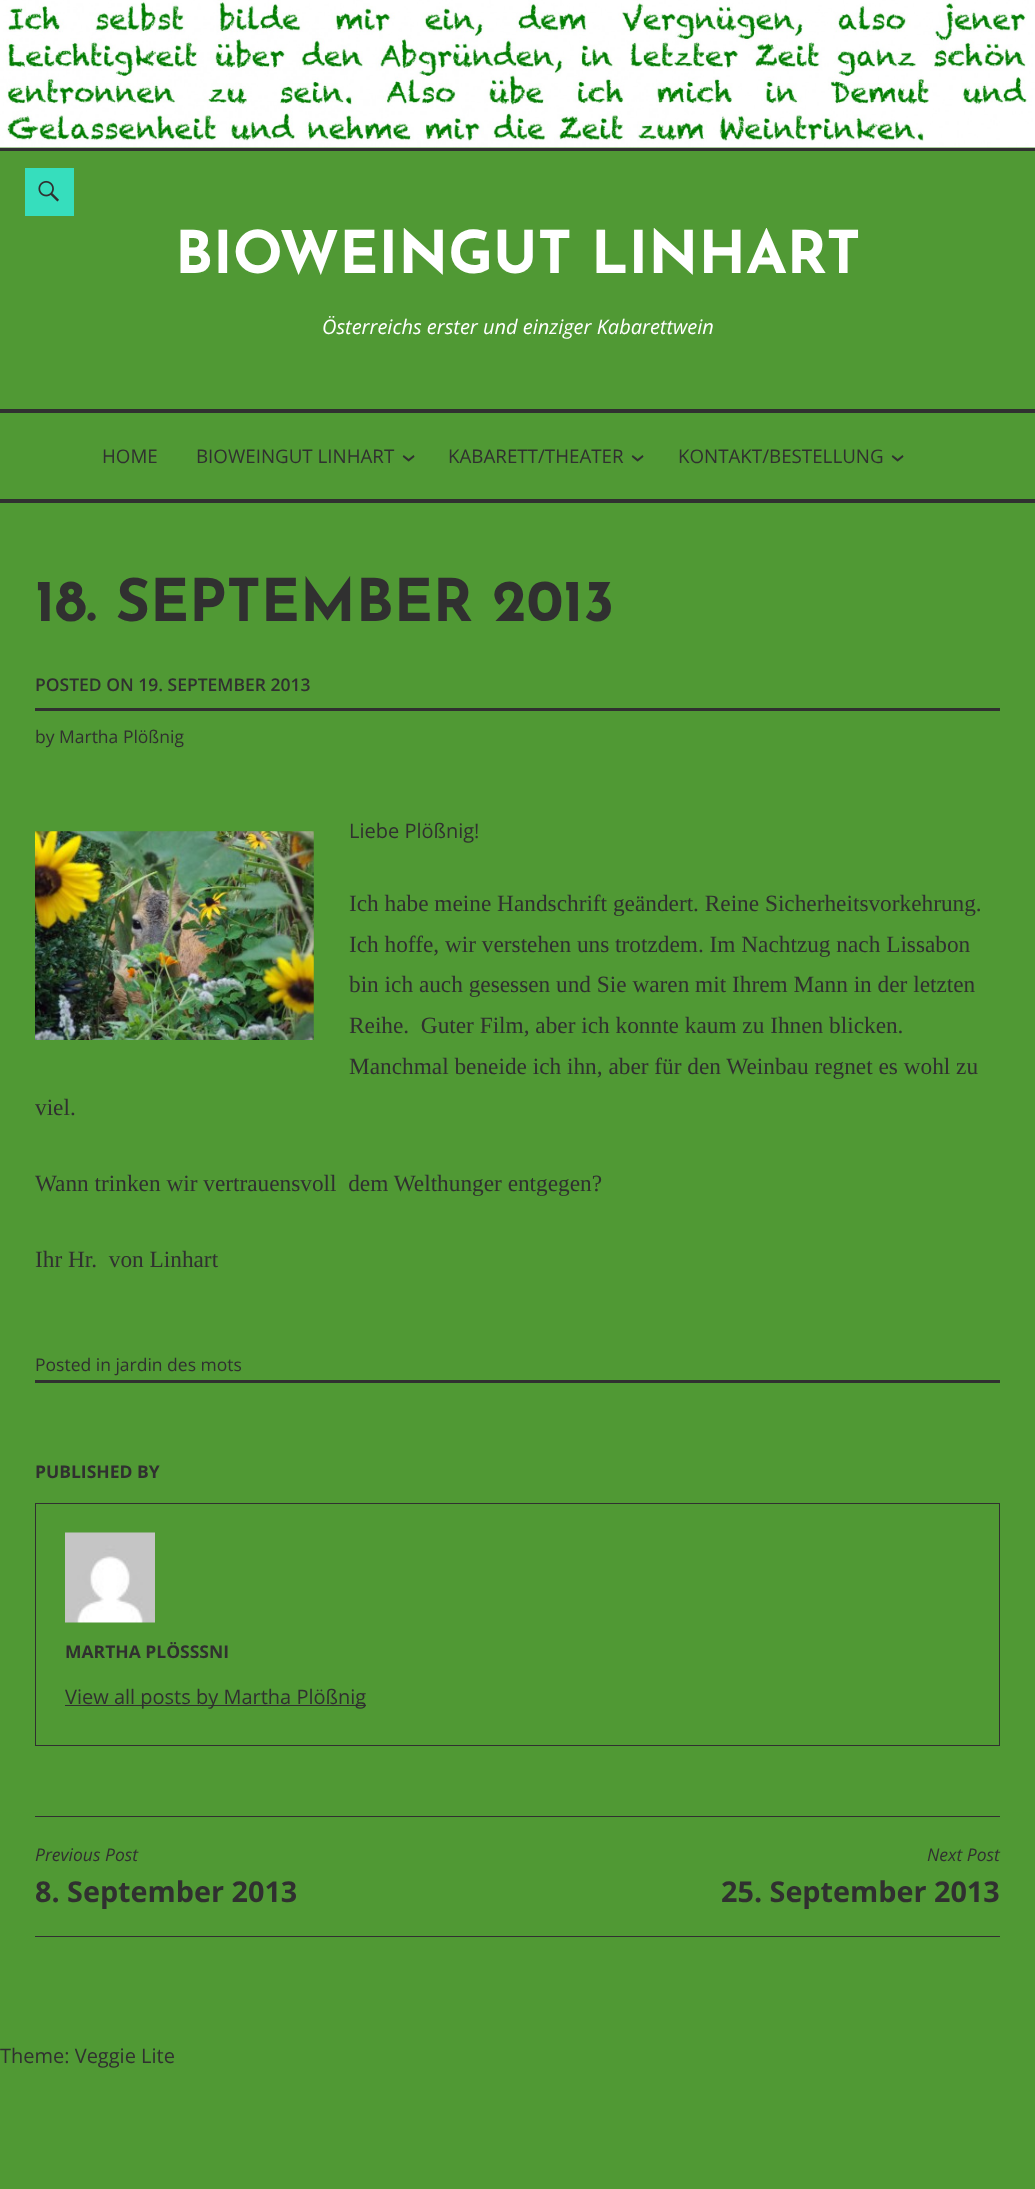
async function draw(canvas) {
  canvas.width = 1035;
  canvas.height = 2189;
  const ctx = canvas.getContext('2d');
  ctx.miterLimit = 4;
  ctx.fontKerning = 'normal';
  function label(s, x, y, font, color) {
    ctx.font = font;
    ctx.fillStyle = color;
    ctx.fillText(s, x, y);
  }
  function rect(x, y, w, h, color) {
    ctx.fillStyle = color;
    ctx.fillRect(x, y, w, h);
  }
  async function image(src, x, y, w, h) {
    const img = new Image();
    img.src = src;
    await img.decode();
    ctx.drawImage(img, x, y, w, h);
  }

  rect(0, 0, 1035, 2189, '#509934');
  rect(0, 148, 1035, 3, '#303030');
  await image('assets/img1.png', 0, 0, 1035, 148);
  rect(25, 168, 49, 48, '#36debd');
  await image('assets/img2.png', 38, 180, 21, 22);
  label('BIOWEINGUT LINHART', 175, 273, 'bold 58.75px Josefin Sans', '#fff');
  label('Österreichs erster und einziger Kabarettwein', 322, 334, 'italic 20px Open Sans', '#fff');
  rect(0, 409, 1035, 4, '#303030');
  rect(0, 499, 1035, 4, '#303030');
  label('HOME', 102, 463, '18.75px Open Sans', '#303030');
  label('BIOWEINGUT LINHART', 196, 463, '18.75px Open Sans', '#303030');
  ctx.font = '28.75px Open Sans';
  ctx.save();
  ctx.translate(401, 454);
  ctx.rotate(90 * Math.PI / 180);
  ctx.fillText('›', 0, 0);
  ctx.restore();
  label('KABARETT/THEATER', 448, 463, '18.75px Open Sans', '#303030');
  ctx.font = '28.75px Open Sans';
  ctx.save();
  ctx.translate(630, 454);
  ctx.rotate(90 * Math.PI / 180);
  ctx.fillText('›', 0, 0);
  ctx.restore();
  label('KONTAKT/BESTELLUNG', 678, 463, '18.75px Open Sans', '#303030');
  ctx.font = '28.75px Open Sans';
  ctx.save();
  ctx.translate(890, 454);
  ctx.rotate(90 * Math.PI / 180);
  ctx.fillText('›', 0, 0);
  ctx.restore();
  label('18. SEPTEMBER 2013', 35, 621, 'bold 58.75px Josefin Sans', '#303030');
  rect(35, 708, 965, 3, '#303030');
  label('POSTED ON 19. SEPTEMBER 2013', 35, 691, '600 17.5px Open Sans', '#303030');
  label('by Martha Plößnig', 35, 743, '17.5px Open Sans', '#303030');
  await image('assets/img3.png', 35, 831, 279, 209);
  label('Liebe Plößnig!', 349, 838, '20px Open Sans', '#303030');
  label('Ich habe meine Handschrift geändert. Reine Sicherheitsvorkehrung.', 349, 911, '23.3px Liberation Serif', '#303030');
  label('Ich hoffe, wir verstehen uns trotzdem. Im Nachtzug nach Lissabon', 349, 952, '23.3px Liberation Serif', '#303030');
  label('bin ich auch gesessen und Sie waren mit Ihrem Mann in der letzten', 349, 992, '23.3px Liberation Serif', '#303030');
  label('Reihe.  Guter Film, aber ich konnte kaum zu Ihnen blicken.', 349, 1033, '23.3px Liberation Serif', '#303030');
  label('Manchmal beneide ich ihn, aber für den Weinbau regnet es wohl zu', 349, 1074, '23.3px Liberation Serif', '#303030');
  label('viel.', 35, 1115, '23.3px Liberation Serif', '#303030');
  label('Wann trinken wir vertrauensvoll  dem Welthunger entgegen?', 35, 1191, '23.3px Liberation Serif', '#303030');
  label('Ihr Hr.  von Linhart', 35, 1267, '23.3px Liberation Serif', '#303030');
  rect(35, 1380, 965, 3, '#303030');
  label('Posted in jardin des mots', 35, 1371, '17.5px Open Sans', '#303030');
  label('PUBLISHED BY', 35, 1478, 'bold 17.5px Open Sans', '#303030');
  ctx.strokeStyle = '#303030';
  ctx.strokeRect(35.5, 1503.5, 964, 242);
  await image('assets/img4.png', 65, 1532, 90, 91);
  label('MARTHA PLÖSSSNI', 65, 1658, 'bold 17.5px Open Sans', '#303030');
  rect(65, 1705, 301, 1, '#303030');
  label('View all posts by Martha Plößnig', 65, 1704, '20px Open Sans', '#303030');
  rect(35, 1816, 965, 1, '#303030');
  rect(35, 1936, 965, 1, '#303030');
  label('Previous Post', 35, 1861, 'italic 17.5px Open Sans', '#303030');
  label('8. September 2013', 35, 1902, 'bold 28.75px Open Sans', '#303030');
  label('Next Post', 927, 1861, 'italic 17.5px Open Sans', '#303030');
  label('25. September 2013', 721, 1902, 'bold 28.75px Open Sans', '#303030');
  label('Theme: Veggie Lite', 0, 2063, '20px Open Sans', '#303030');
}

draw(document.querySelector('canvas'));
